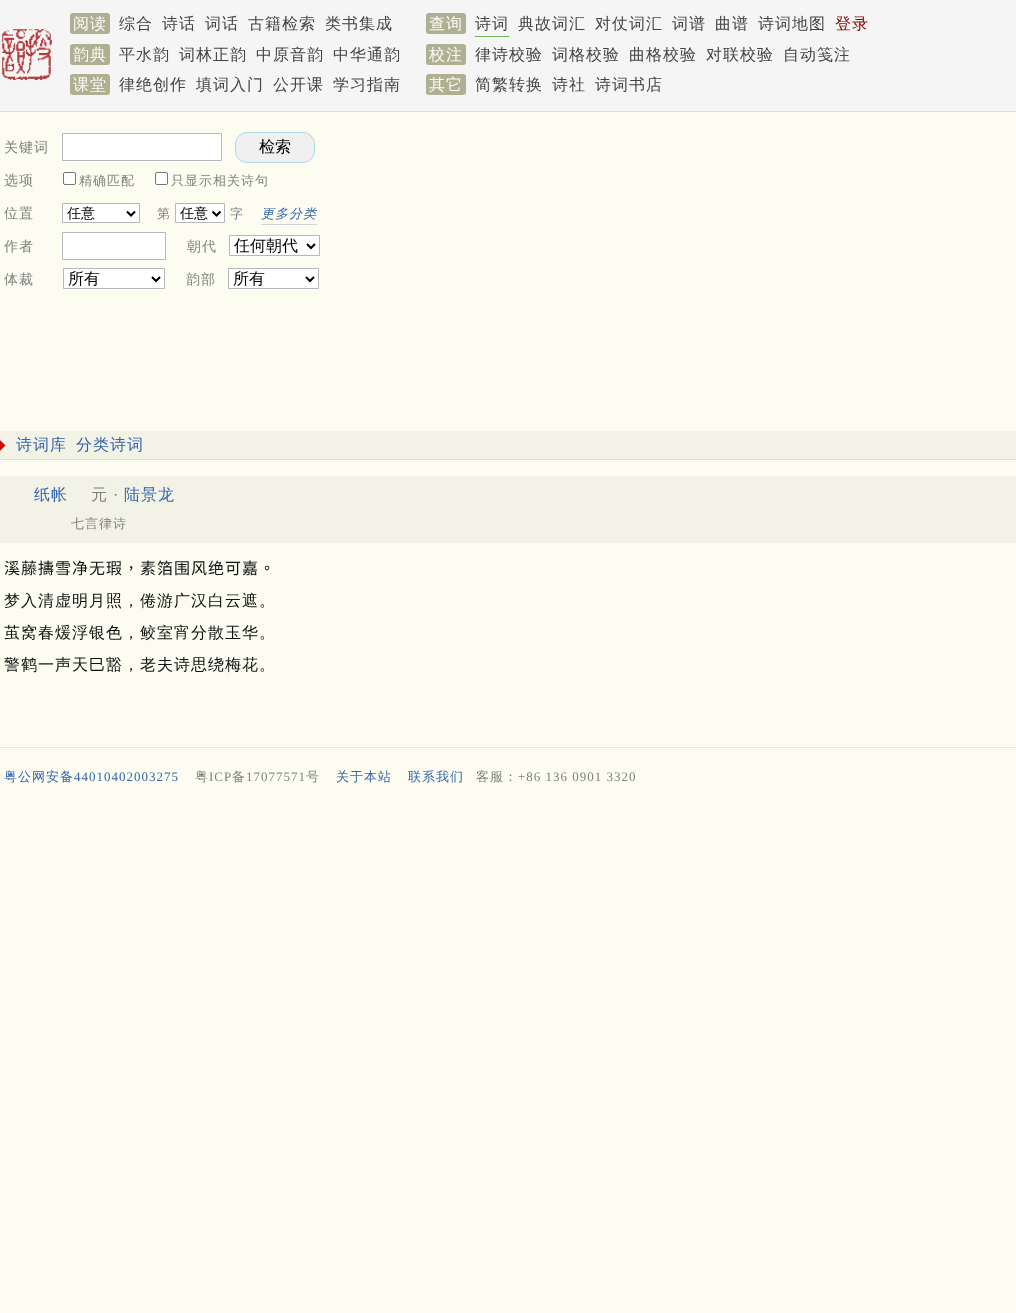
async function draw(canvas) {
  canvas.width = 1016;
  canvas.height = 1313;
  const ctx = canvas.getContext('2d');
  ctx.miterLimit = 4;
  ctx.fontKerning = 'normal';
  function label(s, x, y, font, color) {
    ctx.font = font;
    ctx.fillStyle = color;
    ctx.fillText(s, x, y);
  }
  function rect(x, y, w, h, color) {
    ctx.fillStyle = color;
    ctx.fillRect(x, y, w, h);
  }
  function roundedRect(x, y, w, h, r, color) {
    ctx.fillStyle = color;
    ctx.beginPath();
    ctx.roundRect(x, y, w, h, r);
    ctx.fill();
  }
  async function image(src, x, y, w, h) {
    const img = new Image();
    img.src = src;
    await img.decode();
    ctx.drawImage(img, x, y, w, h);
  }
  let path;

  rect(0, 0, 1016, 1313, '#fcfcf1');
  rect(0, 0, 1016, 111, '#f5f5f5');
  rect(0, 111, 1016, 1, '#ddd');
  roundedRect(70, 13, 40, 21, 3, '#afaf92');
  ctx.letterSpacing = '1px';
  label('阅读', 73, 29, '500 16px WenQuanYi Zen Hei', '#fbfbfb');
  label('综合', 119, 29, '500 16px WenQuanYi Zen Hei', '#444');
  label('诗话', 162, 29, '500 16px WenQuanYi Zen Hei', '#444');
  label('词话', 205, 29, '500 16px WenQuanYi Zen Hei', '#444');
  label('古籍检索', 248, 29, '500 16px WenQuanYi Zen Hei', '#444');
  label('类书集成', 325, 29, '500 16px WenQuanYi Zen Hei', '#444');
  roundedRect(426, 13, 40, 21, 3, '#afaf92');
  label('查询', 429, 29, '500 16px WenQuanYi Zen Hei', '#fbfbfb');
  label('诗词', 475, 29, '500 16px WenQuanYi Zen Hei', '#444');
  rect(475, 36, 34, 1, '#72b352');
  label('典故词汇', 518, 29, '500 16px WenQuanYi Zen Hei', '#444');
  label('对仗词汇', 595, 29, '500 16px WenQuanYi Zen Hei', '#444');
  label('词谱', 672, 29, '500 16px WenQuanYi Zen Hei', '#444');
  label('曲谱', 715, 29, '500 16px WenQuanYi Zen Hei', '#444');
  label('诗词地图', 758, 29, '500 16px WenQuanYi Zen Hei', '#444');
  label('登录', 835, 29, '500 16px WenQuanYi Zen Hei', '#8b0000');
  await image('assets/img1.png', 2, 29, 50, 51);
  roundedRect(70, 44, 40, 21, 3, '#afaf92');
  label('韵典', 73, 60, '500 16px WenQuanYi Zen Hei', '#fbfbfb');
  label('平水韵', 119, 60, '500 16px WenQuanYi Zen Hei', '#444');
  label('词林正韵', 179, 60, '500 16px WenQuanYi Zen Hei', '#444');
  label('中原音韵', 256, 60, '500 16px WenQuanYi Zen Hei', '#444');
  label('中华通韵', 333, 60, '500 16px WenQuanYi Zen Hei', '#444');
  roundedRect(426, 44, 40, 21, 3, '#afaf92');
  label('校注', 429, 60, '500 16px WenQuanYi Zen Hei', '#fbfbfb');
  label('律诗校验', 475, 60, '500 16px WenQuanYi Zen Hei', '#444');
  label('词格校验', 552, 60, '500 16px WenQuanYi Zen Hei', '#444');
  label('曲格校验', 629, 60, '500 16px WenQuanYi Zen Hei', '#444');
  label('对联校验', 706, 60, '500 16px WenQuanYi Zen Hei', '#444');
  label('自动笺注', 783, 60, '500 16px WenQuanYi Zen Hei', '#444');
  roundedRect(70, 74, 40, 21, 3, '#afaf92');
  label('课堂', 73, 90, '500 16px WenQuanYi Zen Hei', '#fbfbfb');
  label('律绝创作', 119, 90, '500 16px WenQuanYi Zen Hei', '#444');
  label('填词入门', 196, 90, '500 16px WenQuanYi Zen Hei', '#444');
  label('公开课', 273, 90, '500 16px WenQuanYi Zen Hei', '#444');
  label('学习指南', 333, 90, '500 16px WenQuanYi Zen Hei', '#444');
  roundedRect(426, 74, 40, 21, 3, '#afaf92');
  label('其它', 429, 90, '500 16px WenQuanYi Zen Hei', '#fbfbfb');
  label('简繁转换', 475, 90, '500 16px WenQuanYi Zen Hei', '#444');
  label('诗社', 552, 90, '500 16px WenQuanYi Zen Hei', '#444');
  label('诗词书店', 595, 90, '500 16px WenQuanYi Zen Hei', '#444');
  label('关键词', 4, 152, '500 14px WenQuanYi Zen Hei', '#808080');
  ctx.fillStyle = '#fff';
  ctx.beginPath();
  ctx.rect(62.5, 133.5, 159, 27);
  ctx.fill();
  ctx.strokeStyle = '#b4b7be';
  ctx.stroke();
  ctx.fillStyle = '#f0f0f0';
  ctx.beginPath();
  ctx.roundRect(235.5, 132.5, 79, 30, 11.5);
  ctx.fill();
  ctx.strokeStyle = '#add8e6';
  ctx.stroke();
  ctx.letterSpacing = '0px';
  label('检索', 259, 152, '500 16px WenQuanYi Zen Hei', '#000');
  ctx.letterSpacing = '1px';
  label('选项', 4, 185, '500 14px WenQuanYi Zen Hei', '#808080');
  ctx.fillStyle = '#fff';
  ctx.beginPath();
  ctx.roundRect(63.5, 172.5, 12, 12, 1.5);
  ctx.fill();
  ctx.strokeStyle = '#767676';
  ctx.stroke();
  label('精确匹配', 79, 185, '500 13px WenQuanYi Zen Hei', '#808080');
  ctx.fillStyle = '#fff';
  ctx.beginPath();
  ctx.roundRect(155.5, 172.5, 12, 12, 1.5);
  ctx.fill();
  ctx.stroke();
  label('只显示相关诗句', 171, 185, '500 13px WenQuanYi Zen Hei', '#808080');
  label('位置', 4, 218, '500 14px WenQuanYi Zen Hei', '#808080');
  ctx.fillStyle = '#fff';
  ctx.beginPath();
  ctx.rect(62.5, 203.5, 77, 19);
  ctx.fill();
  ctx.strokeStyle = '#b4b7be';
  ctx.stroke();
  path = new Path2D('M127 211.5L131 215.5L135 211.5');
  ctx.strokeStyle = '#000';
  ctx.lineWidth = 2;
  ctx.stroke(path);
  ctx.letterSpacing = '0px';
  label('任意', 67, 218, '500 14px WenQuanYi Zen Hei', '#000');
  ctx.letterSpacing = '1px';
  label('第', 157, 218, '500 13px WenQuanYi Zen Hei', '#808080');
  ctx.fillStyle = '#fff';
  ctx.beginPath();
  ctx.rect(175.5, 203.5, 49, 19);
  ctx.fill();
  ctx.strokeStyle = '#b4b7be';
  ctx.lineWidth = 1;
  ctx.stroke();
  path = new Path2D('M212.5 211.5L216.5 215.5L220.5 211.5');
  ctx.strokeStyle = '#000';
  ctx.lineWidth = 2;
  ctx.stroke(path);
  ctx.letterSpacing = '0px';
  label('任意', 180, 218, '500 14px WenQuanYi Zen Hei', '#000');
  ctx.letterSpacing = '1px';
  label('字', 230, 218, '500 13px WenQuanYi Zen Hei', '#808080');
  label('更多分类', 261, 218, 'italic 500 13px WenQuanYi Zen Hei', '#36a');
  rect(261, 224, 56, 1, '#d3d3d3');
  label('作者', 4, 251, '500 14px WenQuanYi Zen Hei', '#808080');
  ctx.fillStyle = '#fff';
  ctx.beginPath();
  ctx.rect(62.5, 232.5, 103, 27);
  ctx.fill();
  ctx.strokeStyle = '#b4b7be';
  ctx.lineWidth = 1;
  ctx.stroke();
  label('朝代', 187, 251, '500 14px WenQuanYi Zen Hei', '#808080');
  ctx.fillStyle = '#fff';
  ctx.beginPath();
  ctx.rect(229.5, 235.5, 90, 20);
  ctx.fill();
  ctx.stroke();
  path = new Path2D('M307 244L311 248L315 244');
  ctx.strokeStyle = '#000';
  ctx.lineWidth = 2;
  ctx.stroke(path);
  ctx.letterSpacing = '0px';
  label('任何朝代', 234, 251, '500 16px WenQuanYi Zen Hei', '#000');
  ctx.letterSpacing = '1px';
  label('体裁', 4, 284, '500 14px WenQuanYi Zen Hei', '#808080');
  ctx.fillStyle = '#fff';
  ctx.beginPath();
  ctx.rect(63.5, 268.5, 101, 20);
  ctx.fill();
  ctx.strokeStyle = '#b4b7be';
  ctx.lineWidth = 1;
  ctx.stroke();
  path = new Path2D('M152 277L156 281L160 277');
  ctx.strokeStyle = '#000';
  ctx.lineWidth = 2;
  ctx.stroke(path);
  ctx.letterSpacing = '0px';
  label('所有', 68, 284, '500 16px WenQuanYi Zen Hei', '#000');
  ctx.letterSpacing = '1px';
  label('韵部', 186, 284, '500 14px WenQuanYi Zen Hei', '#808080');
  ctx.fillStyle = '#fff';
  ctx.beginPath();
  ctx.rect(228.5, 268.5, 90, 20);
  ctx.fill();
  ctx.strokeStyle = '#b4b7be';
  ctx.lineWidth = 1;
  ctx.stroke();
  path = new Path2D('M306 277L310 281L314 277');
  ctx.strokeStyle = '#000';
  ctx.lineWidth = 2;
  ctx.stroke(path);
  ctx.letterSpacing = '0px';
  label('所有', 233, 284, '500 16px WenQuanYi Zen Hei', '#000');
  rect(0, 431, 1016, 28, '#f2f2e7');
  await image('assets/img2.png', 0, 440, 6, 11);
  rect(0, 459, 1016, 1, '#ddd');
  ctx.letterSpacing = '1px';
  label('诗词库', 16, 450, '500 16px WenQuanYi Zen Hei', '#36a');
  label('分类诗词', 76, 450, '500 16px WenQuanYi Zen Hei', '#36a');
  rect(0, 476, 1016, 67, '#f2f2e7');
  label('纸帐', 34, 500, '500 16px WenQuanYi Zen Hei', '#36a');
  label('元', 91, 500, '500 16px WenQuanYi Zen Hei', '#808080');
  label('·', 113, 500, '16px Liberation Serif', '#808080');
  label('陆景龙', 124, 500, '500 16px WenQuanYi Zen Hei', '#36a');
  label('七言律诗', 71, 528, '500 13px WenQuanYi Zen Hei', '#808080');
  label('溪藤𢷬雪净无瑕，素箔围风绝可嘉。', 4, 574, '16px Chiron Hei HK', '#111');
  label('梦入清虚明月照，倦游广汉白云遮。', 4, 606, '500 16px WenQuanYi Zen Hei', '#111');
  label('茧窝春煖浮银色，鲛室宵分散玉华。', 4, 638, '500 16px WenQuanYi Zen Hei', '#111');
  label('警鹤一声天巳豁，老夫诗思绕梅花。', 4, 670, '500 16px WenQuanYi Zen Hei', '#111');
  rect(0, 747, 1016, 1, '#e5e5e5');
  label('粤公网安备', 4, 781, '500 13px WenQuanYi Zen Hei', '#36a');
  label('44010402003275', 74, 781, '13px Liberation Serif', '#36a');
  label('粤', 195, 781, '500 13px WenQuanYi Zen Hei', '#808080');
  label('ICP', 209, 781, '13px Liberation Serif', '#808080');
  label('备', 232, 781, '500 13px WenQuanYi Zen Hei', '#808080');
  label('17077571', 246, 781, '13px Liberation Serif', '#808080');
  label('号', 306, 781, '500 13px WenQuanYi Zen Hei', '#808080');
  label('关于本站', 336, 781, '500 13px WenQuanYi Zen Hei', '#36a');
  label('联系我们', 408, 781, '500 13px WenQuanYi Zen Hei', '#36a');
  label('客服：', 476, 781, '500 13px WenQuanYi Zen Hei', '#808080');
  label('+86 136 0901 3320', 518, 781, '13px Liberation Serif', '#808080');
}

draw(document.querySelector('canvas'));
